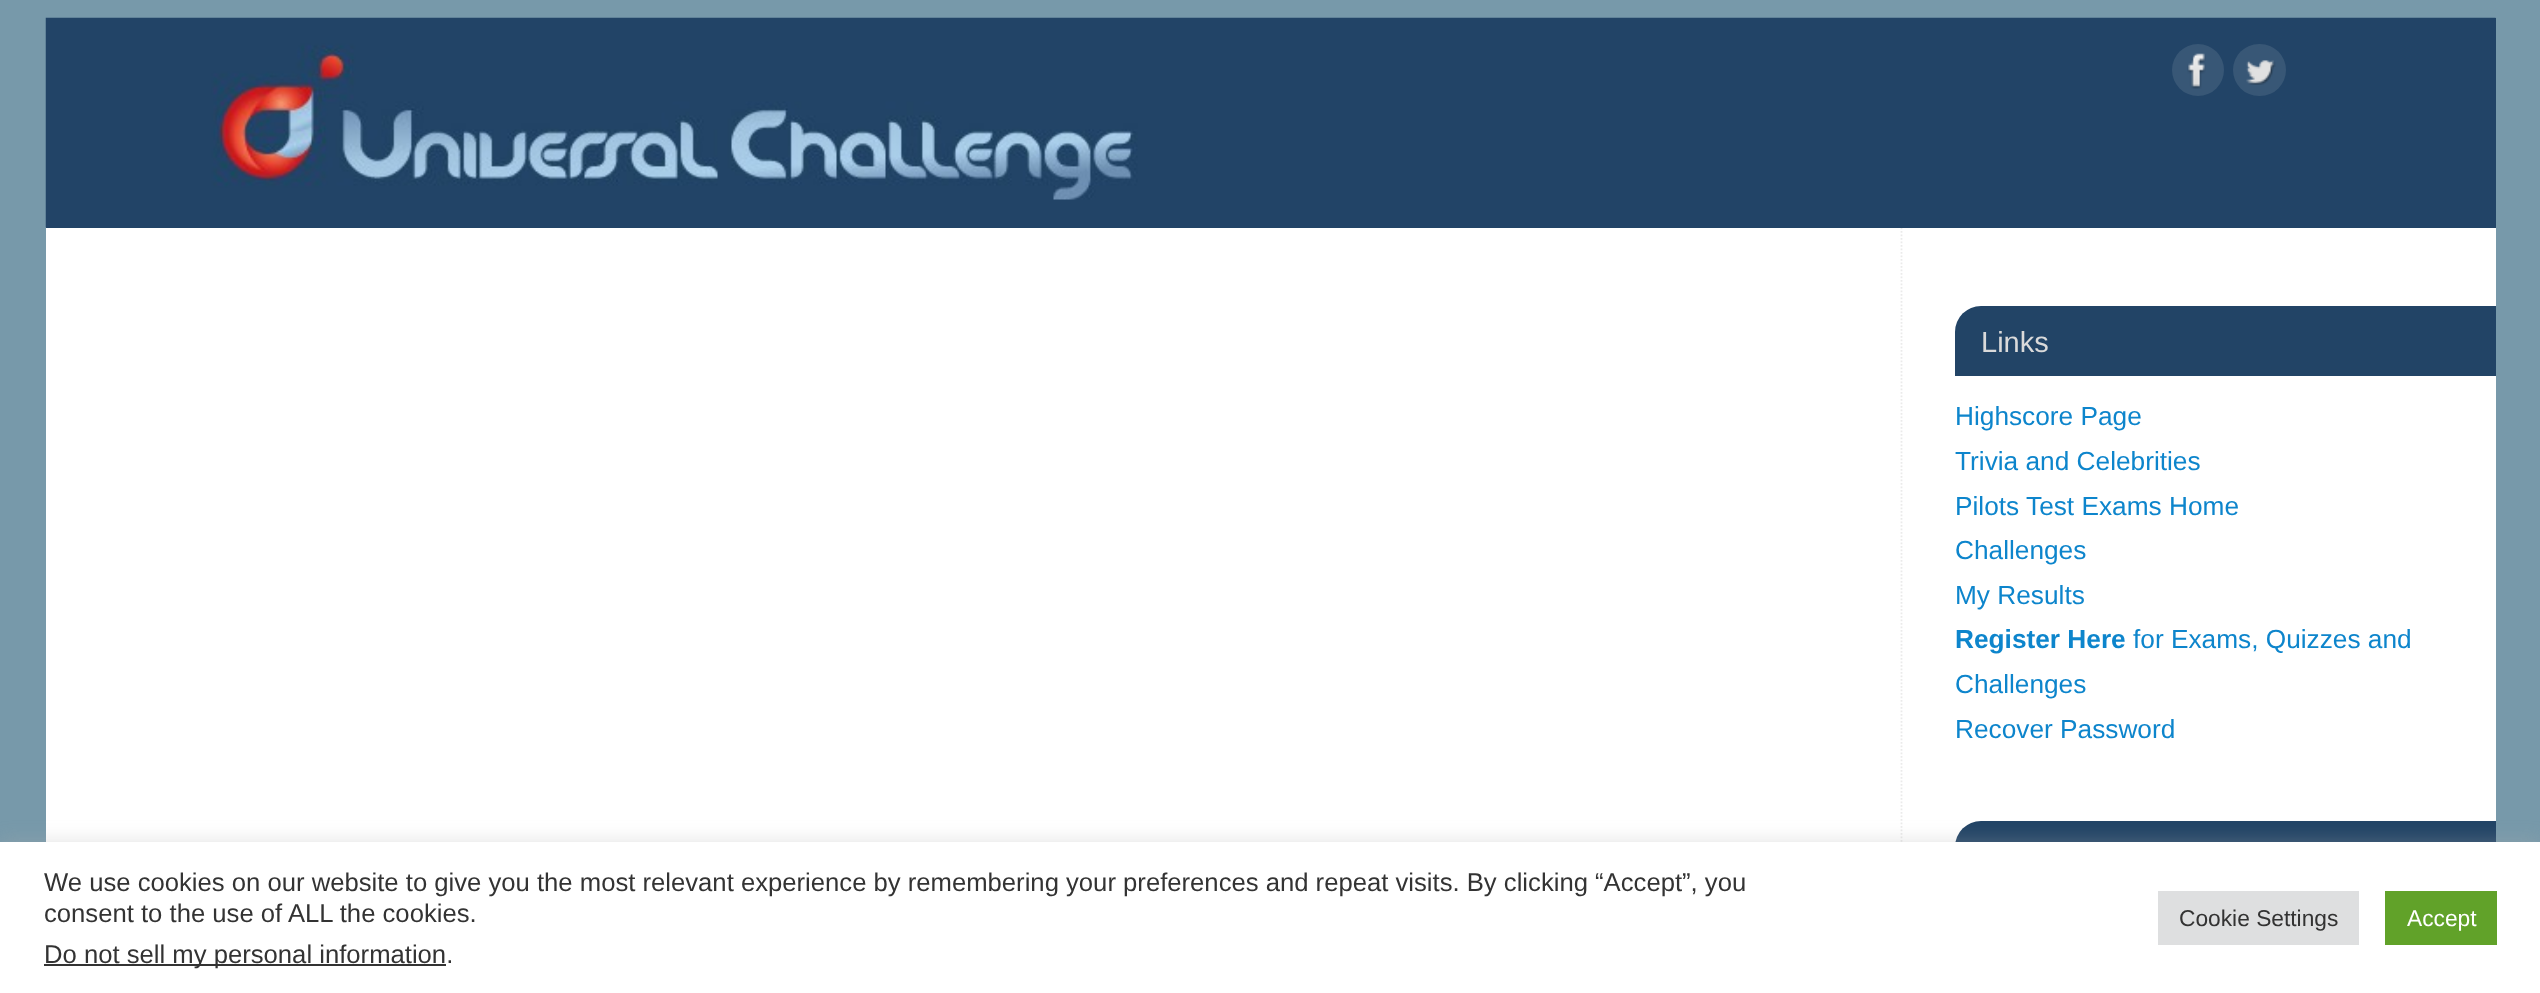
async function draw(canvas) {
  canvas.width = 2540;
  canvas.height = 993;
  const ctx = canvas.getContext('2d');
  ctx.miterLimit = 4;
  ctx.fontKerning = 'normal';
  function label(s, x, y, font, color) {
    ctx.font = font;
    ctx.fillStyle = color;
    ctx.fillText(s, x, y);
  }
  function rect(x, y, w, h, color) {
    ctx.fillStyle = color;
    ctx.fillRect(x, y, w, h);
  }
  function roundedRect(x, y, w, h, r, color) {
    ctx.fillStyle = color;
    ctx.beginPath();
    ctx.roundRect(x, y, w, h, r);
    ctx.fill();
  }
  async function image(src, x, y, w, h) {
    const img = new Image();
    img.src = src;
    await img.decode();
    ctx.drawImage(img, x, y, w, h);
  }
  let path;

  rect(0, 0, 2540, 993, '#79a');
  rect(46, 18, 2450, 210, '#246');
  await image('assets/img1.png', 45, 17, 2451, 211);
  ctx.fillStyle = '#385776';
  ctx.beginPath();
  ctx.arc(2198, 70, 26, 0, 2 * Math.PI);
  ctx.fill();
  await image('assets/img2.png', 2187, 53, 19, 36);
  roundedRect(2233, 44, 53, 52, 26, '#385776');
  await image('assets/img3.png', 2246, 60, 30, 25);
  rect(46, 228, 2450, 614, '#fff');
  ctx.save();
  ctx.beginPath();
  ctx.rect(46, 228, 2450, 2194);
  ctx.clip();
  path = new Path2D('M1901.5 227.5V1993');
  ctx.strokeStyle = '#eaeaea';
  ctx.lineWidth = 1.8;
  ctx.setLineDash([1.75, 1.75]);
  ctx.stroke(path);
  ctx.restore();
  ctx.fillStyle = '#246';
  ctx.beginPath();
  ctx.roundRect(1955, 306, 541, 70, [26, 0, 0, 0]);
  ctx.fill();
  label('Links', 1981, 352, '29px Liberation Sans', '#dadada');
  label('Highscore Page', 1955, 425, '26.25px Liberation Sans', '#0d85cc');
  label('Trivia and Celebrities', 1955, 470, '26.25px Liberation Sans', '#0d85cc');
  label('Pilots Test Exams Home', 1955, 515, '26.25px Liberation Sans', '#0d85cc');
  label('Challenges', 1955, 559, '26.25px Liberation Sans', '#0d85cc');
  label('My Results', 1955, 604, '26.25px Liberation Sans', '#0d85cc');
  label('Register Here', 1955, 648, 'bold 26.25px Liberation Sans', '#0d85cc');
  label('for Exams, Quizzes and', 2133, 648, '26.25px Liberation Sans', '#0d85cc');
  label('Challenges', 1955, 693, '26.25px Liberation Sans', '#0d85cc');
  label('Recover Password', 1955, 738, '26.25px Liberation Sans', '#0d85cc');
  ctx.fillStyle = '#246';
  ctx.beginPath();
  ctx.roundRect(1955, 821, 541, 70, [26, 0, 0, 0]);
  ctx.fill();
  ctx.fillStyle = '#acabab4d';
  ctx.filter = 'blur(9px)';
  ctx.beginPath();
  ctx.rect(0, 840, 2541, 152);
  ctx.fill();
  ctx.filter = 'none';
  rect(0, 842, 2540, 151, '#fff');
  label('We use cookies on our website to give you the most relevant experience by remembering your preferences and repeat visits. By clicking “Accept”, you', 44, 891, '25.67px Liberation Sans', '#333');
  label('consent to the use of ALL the cookies.', 44, 922, '25.67px Liberation Sans', '#333');
  rect(44, 964, 402, 2, '#333');
  label('Do not sell my personal information.', 44, 963, '25.67px Liberation Sans', '#333');
  rect(2158, 891, 201, 54, '#dedfe0');
  label('Cookie Settings', 2179, 926, '22.75px Liberation Sans', '#333');
  rect(2385, 891, 112, 54, '#61a229');
  label('Accept', 2407, 926, '22.75px Liberation Sans', '#fff');
}

draw(document.querySelector('canvas'));
